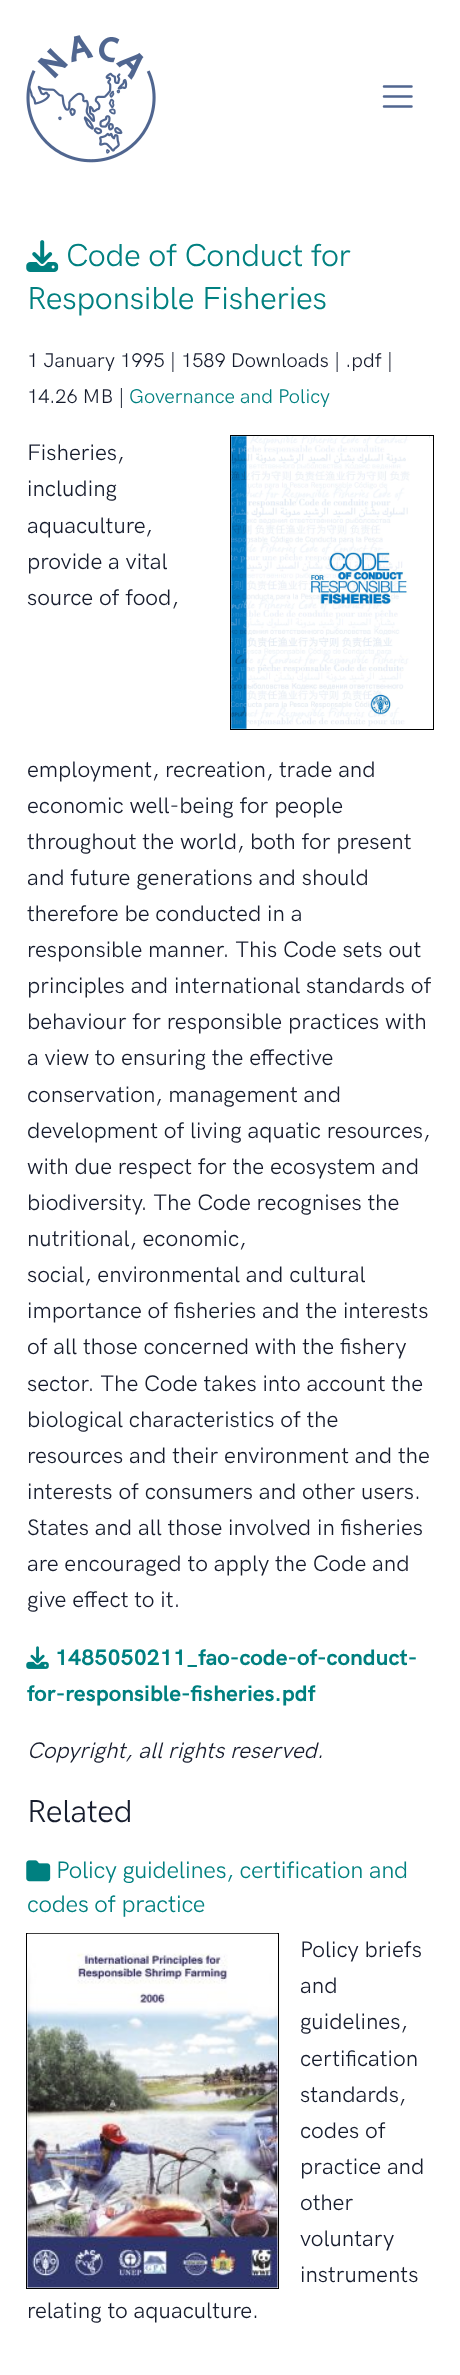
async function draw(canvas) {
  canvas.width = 460;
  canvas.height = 2375;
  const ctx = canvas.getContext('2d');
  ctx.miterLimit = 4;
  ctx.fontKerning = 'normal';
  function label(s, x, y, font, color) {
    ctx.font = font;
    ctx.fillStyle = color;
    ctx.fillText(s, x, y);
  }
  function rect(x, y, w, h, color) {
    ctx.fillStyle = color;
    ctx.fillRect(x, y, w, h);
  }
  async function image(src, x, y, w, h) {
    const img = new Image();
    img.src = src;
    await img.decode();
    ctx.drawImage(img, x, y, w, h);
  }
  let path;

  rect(0, 0, 460, 2375, '#fff');
  await image('assets/img1.png', 26, 35, 130, 128);
  path = new Path2D('M384 86.5H411.5M384 96.5H411.5M384 106.5H411.5');
  ctx.strokeStyle = '#506690';
  ctx.lineWidth = 2.5;
  ctx.lineCap = 'round';
  ctx.stroke(path);
  await image('assets/img2.png', 26, 240, 33, 32);
  ctx.letterSpacing = '-0.3px';
  label('Code of Conduct for', 66, 266, '31.9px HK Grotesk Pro', '#008080');
  label('Responsible Fisheries', 27, 309, '31.9px HK Grotesk Pro', '#008080');
  ctx.letterSpacing = '0px';
  label('1 January 1995 | 1589 Downloads | .pdf |', 27, 367, '19.9px HK Grotesk Pro', '#161c2d');
  label('14.26 MB |', 27, 403, '19.9px HK Grotesk Pro', '#161c2d');
  label('Governance and Policy', 129, 403, '19.9px HK Grotesk Pro', '#008080');
  ctx.strokeStyle = '#000';
  ctx.lineWidth = 1;
  ctx.strokeRect(230.5, 435.5, 203, 294);
  await image('assets/img3.png', 231, 436, 202, 293);
  label('Fisheries,', 27, 460, '22.6px HK Grotesk Pro', '#161c2d');
  label('including', 27, 496, '22.6px HK Grotesk Pro', '#161c2d');
  label('aquaculture,', 27, 533, '22.6px HK Grotesk Pro', '#161c2d');
  label('provide a vital', 27, 569, '22.6px HK Grotesk Pro', '#161c2d');
  label('source of food,', 27, 605, '22.6px HK Grotesk Pro', '#161c2d');
  label('employment, recreation, trade and', 27, 777, '22.6px HK Grotesk Pro', '#161c2d');
  label('economic well-being for people', 27, 813, '22.6px HK Grotesk Pro', '#161c2d');
  label('throughout the world, both for present', 27, 849, '22.6px HK Grotesk Pro', '#161c2d');
  label('and future generations and should', 27, 885, '22.6px HK Grotesk Pro', '#161c2d');
  label('therefore be conducted in a', 27, 921, '22.6px HK Grotesk Pro', '#161c2d');
  label('responsible manner. This Code sets out', 27, 957, '22.6px HK Grotesk Pro', '#161c2d');
  label('principles and international standards of', 27, 993, '22.6px HK Grotesk Pro', '#161c2d');
  label('behaviour for responsible practices with', 27, 1029, '22.6px HK Grotesk Pro', '#161c2d');
  label('a view to ensuring the effective', 27, 1065, '22.6px HK Grotesk Pro', '#161c2d');
  label('conservation, management and', 27, 1102, '22.6px HK Grotesk Pro', '#161c2d');
  label('development of living aquatic resources,', 27, 1138, '22.6px HK Grotesk Pro', '#161c2d');
  label('with due respect for the ecosystem and', 27, 1174, '22.6px HK Grotesk Pro', '#161c2d');
  label('biodiversity. The Code recognises the', 27, 1210, '22.6px HK Grotesk Pro', '#161c2d');
  label('nutritional, economic,', 27, 1246, '22.6px HK Grotesk Pro', '#161c2d');
  label('social, environmental and cultural', 27, 1282, '22.6px HK Grotesk Pro', '#161c2d');
  label('importance of fisheries and the interests', 27, 1318, '22.6px HK Grotesk Pro', '#161c2d');
  label('of all those concerned with the fishery', 27, 1354, '22.6px HK Grotesk Pro', '#161c2d');
  label('sector. The Code takes into account the', 27, 1391, '22.6px HK Grotesk Pro', '#161c2d');
  label('biological characteristics of the', 27, 1427, '22.6px HK Grotesk Pro', '#161c2d');
  label('resources and their environment and the', 27, 1463, '22.6px HK Grotesk Pro', '#161c2d');
  label('interests of consumers and other users.', 27, 1499, '22.6px HK Grotesk Pro', '#161c2d');
  label('States and all those involved in fisheries', 27, 1535, '22.6px HK Grotesk Pro', '#161c2d');
  label('are encouraged to apply the Code and', 27, 1571, '22.6px HK Grotesk Pro', '#161c2d');
  label('give effect to it.', 27, 1607, '22.6px HK Grotesk Pro', '#161c2d');
  await image('assets/img4.png', 26, 1646, 23, 23);
  label('1485050211_fao-code-of-conduct-', 55, 1665, 'bold 22.6px HK Grotesk Pro', '#008080');
  label('for-responsible-fisheries.pdf', 27, 1701, 'bold 22.6px HK Grotesk Pro', '#008080');
  label('Copyright, all rights reserved.', 27, 1758, 'italic 22.6px HK Grotesk Pro', '#161c2d');
  ctx.letterSpacing = '-0.3px';
  label('Related', 27, 1822, '31.9px HK Grotesk Pro', '#161c2d');
  await image('assets/img5.png', 26, 1860, 25, 22);
  ctx.letterSpacing = '-0.25px';
  label('Policy guidelines, certification and', 56, 1878, '23.9px HK Grotesk Pro', '#008080');
  label('codes of practice', 27, 1912, '23.9px HK Grotesk Pro', '#008080');
  ctx.strokeRect(26.5, 1933.5, 252, 355);
  await image('assets/img6.png', 27, 1933, 251, 355);
  ctx.letterSpacing = '0px';
  label('Policy briefs', 300, 1957, '22.6px HK Grotesk Pro', '#161c2d');
  label('and', 300, 1993, '22.6px HK Grotesk Pro', '#161c2d');
  label('guidelines,', 300, 2029, '22.6px HK Grotesk Pro', '#161c2d');
  label('certification', 300, 2066, '22.6px HK Grotesk Pro', '#161c2d');
  label('standards,', 300, 2102, '22.6px HK Grotesk Pro', '#161c2d');
  label('codes of', 300, 2138, '22.6px HK Grotesk Pro', '#161c2d');
  label('practice and', 300, 2174, '22.6px HK Grotesk Pro', '#161c2d');
  label('other', 300, 2210, '22.6px HK Grotesk Pro', '#161c2d');
  label('voluntary', 300, 2246, '22.6px HK Grotesk Pro', '#161c2d');
  label('instruments', 300, 2282, '22.6px HK Grotesk Pro', '#161c2d');
  label('relating to aquaculture.', 27, 2318, '22.6px HK Grotesk Pro', '#161c2d');
}

draw(document.querySelector('canvas'));
